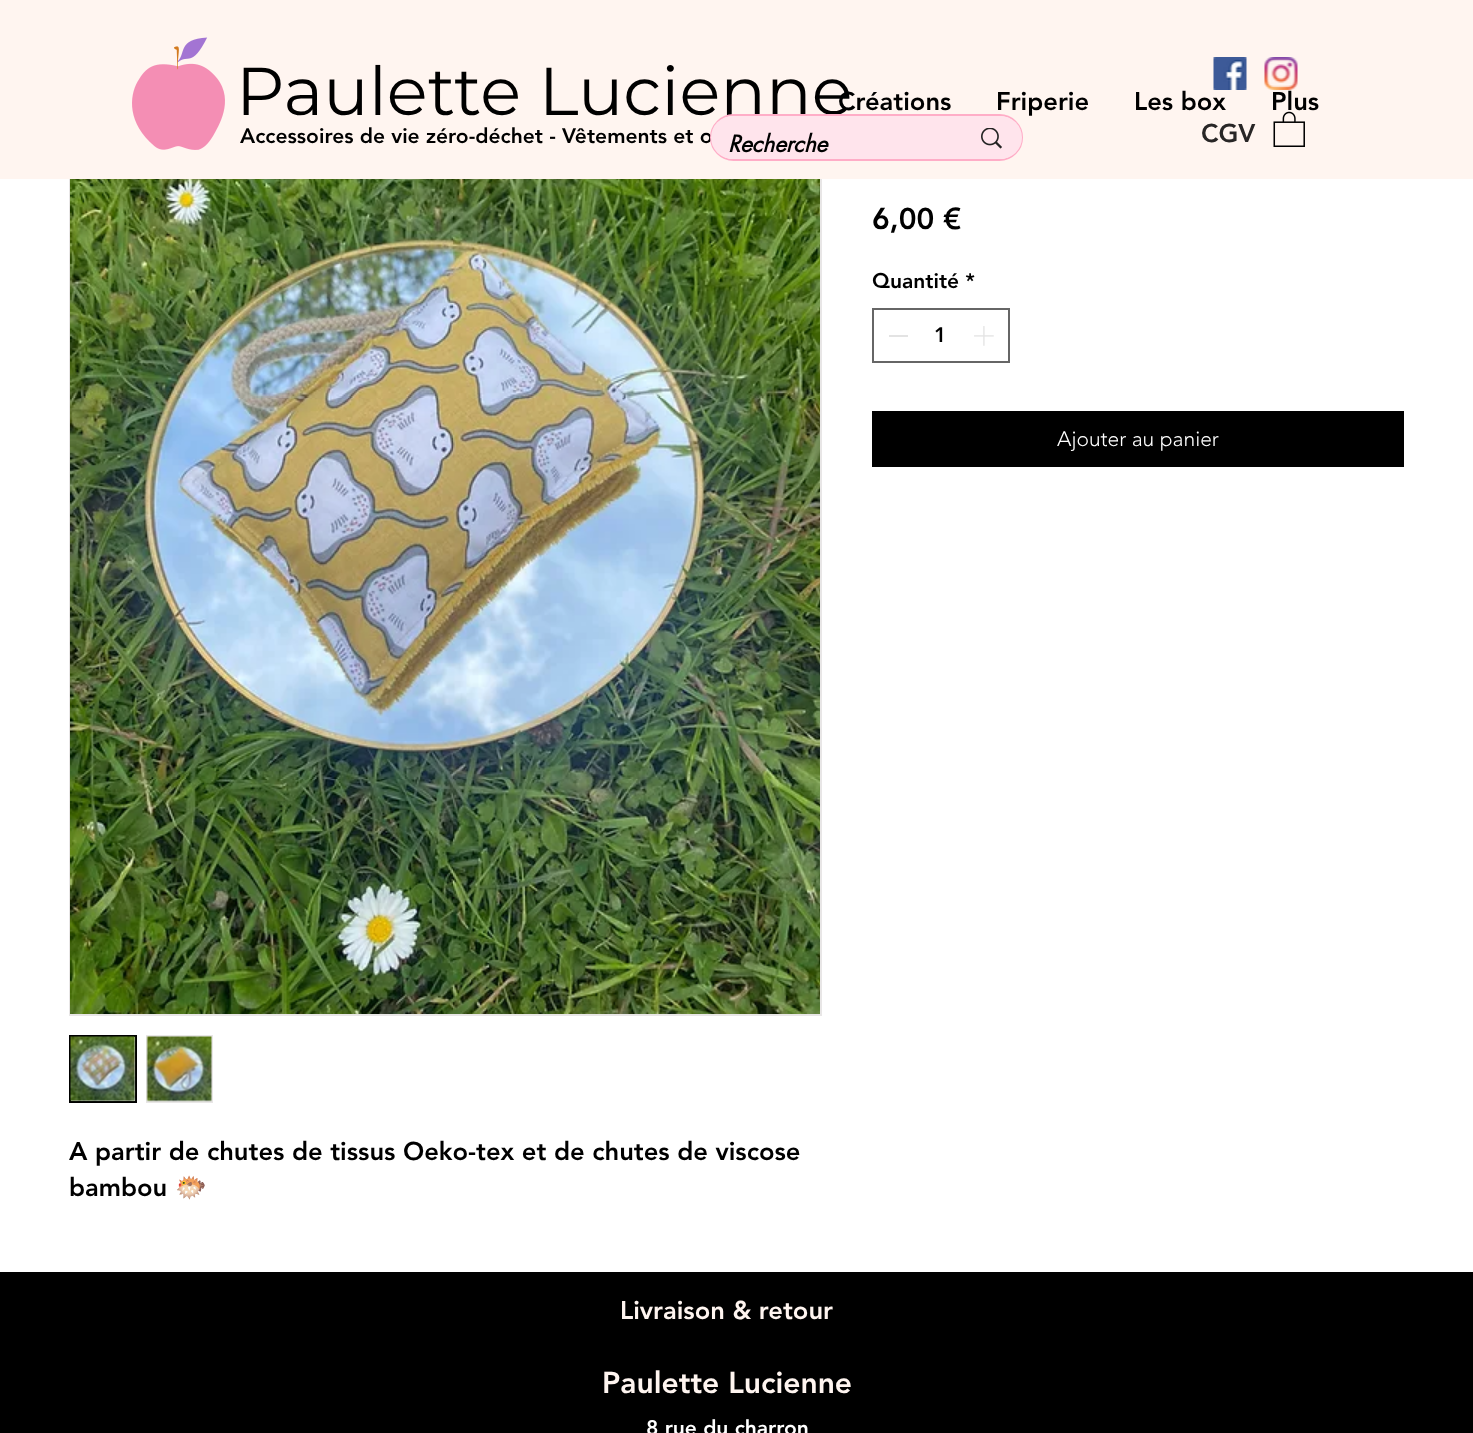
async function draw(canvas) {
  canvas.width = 1473;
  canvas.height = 1433;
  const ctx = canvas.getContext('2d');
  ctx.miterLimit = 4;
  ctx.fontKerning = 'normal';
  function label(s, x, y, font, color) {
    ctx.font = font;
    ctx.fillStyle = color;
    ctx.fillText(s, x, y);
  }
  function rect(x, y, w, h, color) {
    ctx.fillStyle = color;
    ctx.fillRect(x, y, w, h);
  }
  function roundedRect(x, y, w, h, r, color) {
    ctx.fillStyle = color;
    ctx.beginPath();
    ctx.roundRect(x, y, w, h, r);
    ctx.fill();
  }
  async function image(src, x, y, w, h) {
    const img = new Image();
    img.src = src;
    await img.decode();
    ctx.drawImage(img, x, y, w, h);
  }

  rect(0, 0, 1473, 1433, '#fff');
  ctx.strokeStyle = '#e8e6e6';
  ctx.lineWidth = 2;
  ctx.strokeRect(70, 15, 751, 1000);
  rect(0, 0, 1473, 179, '#fff5f0');
  await image('assets/img1.png', 132, 37, 93, 113);
  label('Paulette Lucienne', 236, 115, '67.5px Montserrat', '#000');
  label('Accessoires de vie zéro-déchet - Vêtements et o', 240, 143, '900 21px "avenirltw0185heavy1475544"', '#000');
  label('Créations', 838, 110, '900 25.5px "avenirltw0185heavy1475544"', '#000');
  label('Friperie', 996, 110, '900 25.5px "avenirltw0185heavy1475544"', '#000');
  label('Les box', 1134, 110, '900 25.5px "avenirltw0185heavy1475544"', '#000');
  label('Plus', 1271, 110, '900 25.5px "avenirltw0185heavy1475544"', '#000');
  await image('assets/img2.png', 1213, 57, 34, 33);
  await image('assets/img3.png', 1264, 57, 34, 33);
  ctx.beginPath();
  ctx.roundRect(711, 115, 311, 45, 22.5);
  ctx.strokeStyle = '#ffadc7';
  ctx.stroke();
  roundedRect(711, 116, 311, 43, 21.5, '#ffe4ec');
  label('Recherche', 728, 152, 'italic bold 22.5px futura', '#000');
  await image('assets/img4.png', 981, 128, 21, 21);
  label('CGV', 1201, 142, '900 25.5px "avenirltw0185heavy1475544"', '#282626');
  await image('assets/img5.png', 1273, 111, 32, 36);
  label('6,00 €', 872, 229, '900 30px "avenirltw0185heavy1475544"', '#000');
  label('Quantité *', 872, 288, '900 21px "avenirltw0185heavy1475544"', '#000');
  ctx.strokeStyle = '#666';
  ctx.strokeRect(873, 309, 136, 53);
  rect(889, 335, 19, 2, '#e3e3e3');
  label('1', 934, 342, '900 21px "avenirltw0185heavy1475544"', '#000');
  await image('assets/img6.png', 974, 326, 20, 20);
  rect(872, 411, 532, 56, '#000');
  label('Ajouter au panier', 1057, 446, '300 21px "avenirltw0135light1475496"', '#fff');
  await image('assets/img7.png', 70, 179, 750, 835);
  ctx.fillStyle = '#e8e6e6';
  ctx.beginPath();
  ctx.rect(70, 1036, 66, 66);
  ctx.fill();
  ctx.strokeStyle = '#000';
  ctx.stroke();
  await image('assets/img8.png', 70, 1036, 66, 66);
  rect(146, 1035, 67, 68, '#e8e6e6');
  await image('assets/img9.png', 146, 1036, 66, 66);
  label('A partir de chutes de tissus Oeko-tex et de chutes de viscose', 69, 1160, '900 25.5px "avenirltw0185heavy1475544"', '#000');
  label('bambou', 69, 1196, '900 25.5px "avenirltw0185heavy1475544"', '#000');
  label('🐡', 175, 1196, '25.5px Noto Color Emoji', '#000');
  rect(0, 1272, 1473, 161, '#000');
  label('Livraison & retour', 620, 1319, '900 25.5px "avenirltw0185heavy1475544"', '#fff5f0');
  label('Paulette Lucienne', 602, 1393, '900 30px "avenirltw0185heavy1475544"', '#fff5f0');
  label('8 rue du charron', 646, 1435, '900 21px "avenirltw0185heavy1475544"', '#fff');
}

draw(document.querySelector('canvas'));
